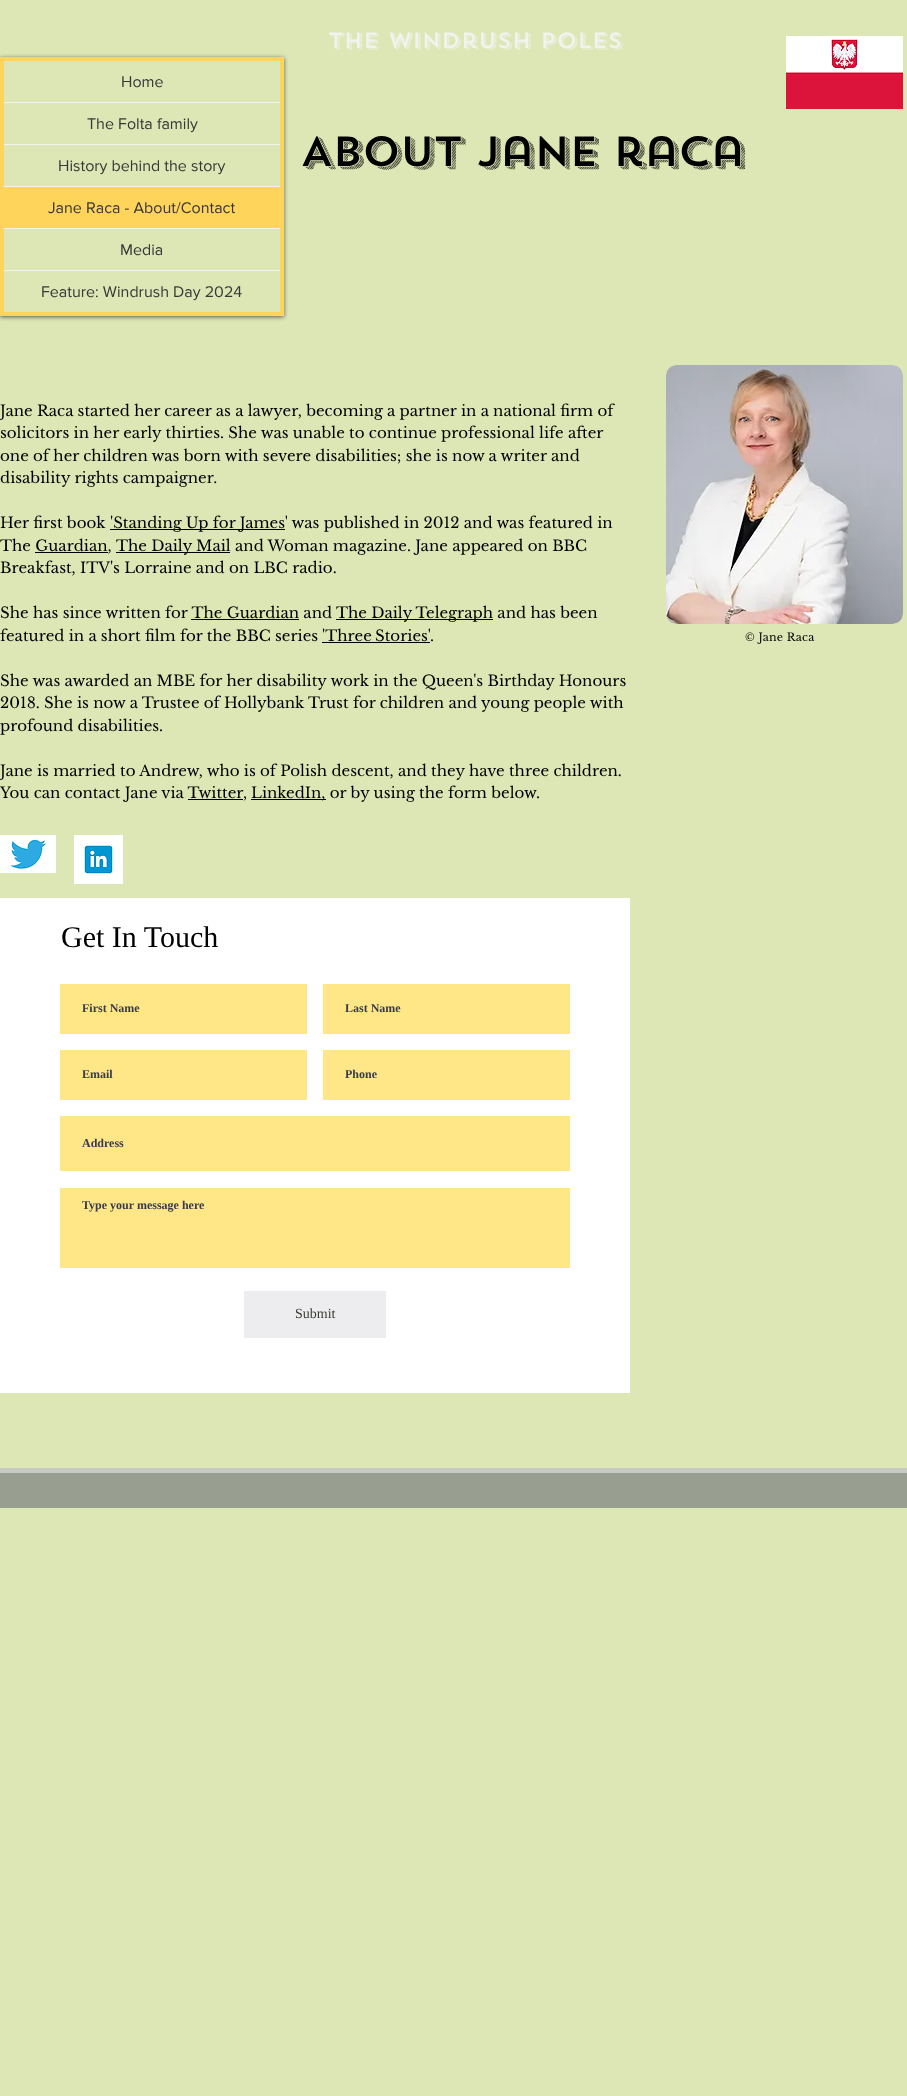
async function draw(canvas) {
  canvas.width = 907;
  canvas.height = 2096;
  const ctx = canvas.getContext('2d');
  ctx.miterLimit = 4;
  ctx.fontKerning = 'normal';
  function label(s, x, y, font, color) {
    ctx.font = font;
    ctx.fillStyle = color;
    ctx.fillText(s, x, y);
  }
  function rect(x, y, w, h, color) {
    ctx.fillStyle = color;
    ctx.fillRect(x, y, w, h);
  }
  async function image(src, x, y, w, h) {
    const img = new Image();
    img.src = src;
    await img.decode();
    ctx.drawImage(img, x, y, w, h);
  }
  let path;

  rect(0, 0, 907, 2096, '#dde6b5');
  label('The windrush poles', 328, 48, '500 22px "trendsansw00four"', '#f1f3ee');
  ctx.save();
  path = new Path2D('M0 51H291V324H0ZM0 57H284V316H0Z');
  ctx.clip(path, 'evenodd');
  ctx.fillStyle = '#00000099';
  ctx.filter = 'blur(2px)';
  ctx.beginPath();
  ctx.rect(0, 58, 284, 259);
  ctx.fill();
  ctx.filter = 'none';
  ctx.restore();
  ctx.strokeStyle = '#ffd45a';
  ctx.lineWidth = 4;
  ctx.strokeRect(2, 59, 280, 255);
  rect(4, 102, 276, 1, '#f1f3ee');
  label('Home', 121, 87, '16px "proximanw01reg"', '#373737');
  rect(4, 144, 276, 1, '#f1f3ee');
  label('The Folta family', 87, 129, '16px "proximanw01reg"', '#373737');
  rect(4, 186, 276, 1, '#f1f3ee');
  label('History behind the story', 58, 171, '16px "proximanw01reg"', '#373737');
  rect(4, 228, 276, 1, '#f1f3ee');
  rect(4, 187, 276, 41, '#ffd45a');
  label('Jane Raca - About/Contact', 48, 213, '16px "proximanw01reg"', '#373737');
  rect(4, 270, 276, 1, '#f1f3ee');
  label('Media', 120, 255, '16px "proximanw01reg"', '#373737');
  label('Feature: Windrush Day 2024', 41, 297, '16px "proximanw01reg"', '#373737');
  ctx.letterSpacing = '-2.1px';
  label('About jane raca', 300, 166, '500 42px "trendsansw00four"', '#000');
  await image('assets/img1.png', 786, 36, 117, 73);
  ctx.letterSpacing = '0px';
  label('Jane Raca started her career as a lawyer, becoming a partner in a national firm of', 0, 416, '15px Libre Baskerville', '#000');
  label('solicitors in her early thirties. She was unable to continue professional life after', 0, 438, '15px Libre Baskerville', '#000');
  label('one of her children was born with severe disabilities; she is now a writer and', 0, 461, '15px Libre Baskerville', '#000');
  label('disability rights campaigner.', 0, 483, '15px Libre Baskerville', '#000');
  label('Her first book', 0, 528, '15px Libre Baskerville', '#000');
  rect(110, 529, 175, 1, '#000');
  label('\'Standing Up for James\' was published in 2012 and was featured in', 110, 528, '15px Libre Baskerville', '#000');
  label('The Guardian,', 0, 551, '15px Libre Baskerville', '#000');
  rect(35, 552, 73, 1, '#000');
  rect(116, 552, 114, 1, '#000');
  label('The Daily Mail and Woman magazine. Jane appeared on BBC', 116, 551, '15px Libre Baskerville', '#000');
  label('Breakfast, ITV\'s Lorraine and on LBC radio.', 0, 573, '15px Libre Baskerville', '#000');
  label('She has since written for The Guardian and', 0, 618, '15px Libre Baskerville', '#000');
  rect(191, 619, 108, 1, '#000');
  rect(336, 619, 157, 1, '#000');
  label('The Daily Telegraph and has been', 336, 618, '15px Libre Baskerville', '#000');
  label('featured in a short film for the BBC series', 0, 641, '15px Libre Baskerville', '#000');
  ctx.wordSpacing = '-1px';
  label('\'Three Stories\'', 322, 641, '15px Libre Baskerville', '#000');
  ctx.wordSpacing = '0px';
  label('.', 430, 641, '15px Libre Baskerville', '#000');
  rect(322, 642, 108, 1, '#000');
  label('She was awarded an MBE for her disability work in the Queen\'s Birthday Honours', 0, 686, '15px Libre Baskerville', '#000');
  label('2018. She is now a Trustee of Hollybank Trust for children and young people with', 0, 708, '15px Libre Baskerville', '#000');
  label('profound disabilities.', 0, 731, '15px Libre Baskerville', '#000');
  label('Jane is married to Andrew, who is of Polish descent, and they have three children.', 0, 776, '15px Libre Baskerville', '#000');
  label('You can contact Jane via Twitter', 0, 798, '15px Libre Baskerville', '#000');
  label(',', 243, 798, '15px Libre Baskerville', '#000');
  rect(188, 799, 55, 1, '#000');
  rect(251, 799, 75, 1, '#000');
  label('LinkedIn, or by using the form below.', 251, 798, '15px Libre Baskerville', '#000');
  await image('assets/img2.png', 666, 365, 237, 259);
  ctx.letterSpacing = '0.25px';
  label('© Jane Raca', 745, 641, '11px Libre Baskerville', '#000');
  await image('assets/img3.png', 0, 835, 56, 38);
  await image('assets/img4.png', 74, 835, 49, 49);
  rect(0, 898, 630, 495, '#fff');
  ctx.letterSpacing = '0px';
  label('Get In Touch', 61, 947, '30px Liberation Serif', '#000');
  rect(60, 984, 247, 50, '#ffe687');
  label('First Name', 82, 1012, 'bold 12px Liberation Serif', '#373b4d');
  rect(323, 984, 247, 50, '#ffe687');
  label('Last Name', 345, 1012, 'bold 12px Liberation Serif', '#373b4d');
  rect(60, 1050, 247, 50, '#ffe687');
  label('Email', 82, 1078, 'bold 12px Liberation Serif', '#373b4d');
  rect(323, 1050, 247, 50, '#ffe687');
  label('Phone', 345, 1078, 'bold 12px Liberation Serif', '#373b4d');
  rect(60, 1116, 510, 55, '#ffe687');
  label('Address', 82, 1147, 'bold 12px Liberation Serif', '#373b4d');
  rect(60, 1188, 510, 80, '#ffe687');
  label('Type your message here', 82, 1209, 'bold 12px Liberation Serif', '#373b4d');
  rect(244, 1291, 142, 47, '#ededef');
  label('Submit', 295, 1318, '14px Liberation Serif', '#393d32');
  rect(0, 1473, 907, 35, '#989e90');
  rect(0, 1468, 907, 5, '#c8c9c5');
}

draw(document.querySelector('canvas'));
